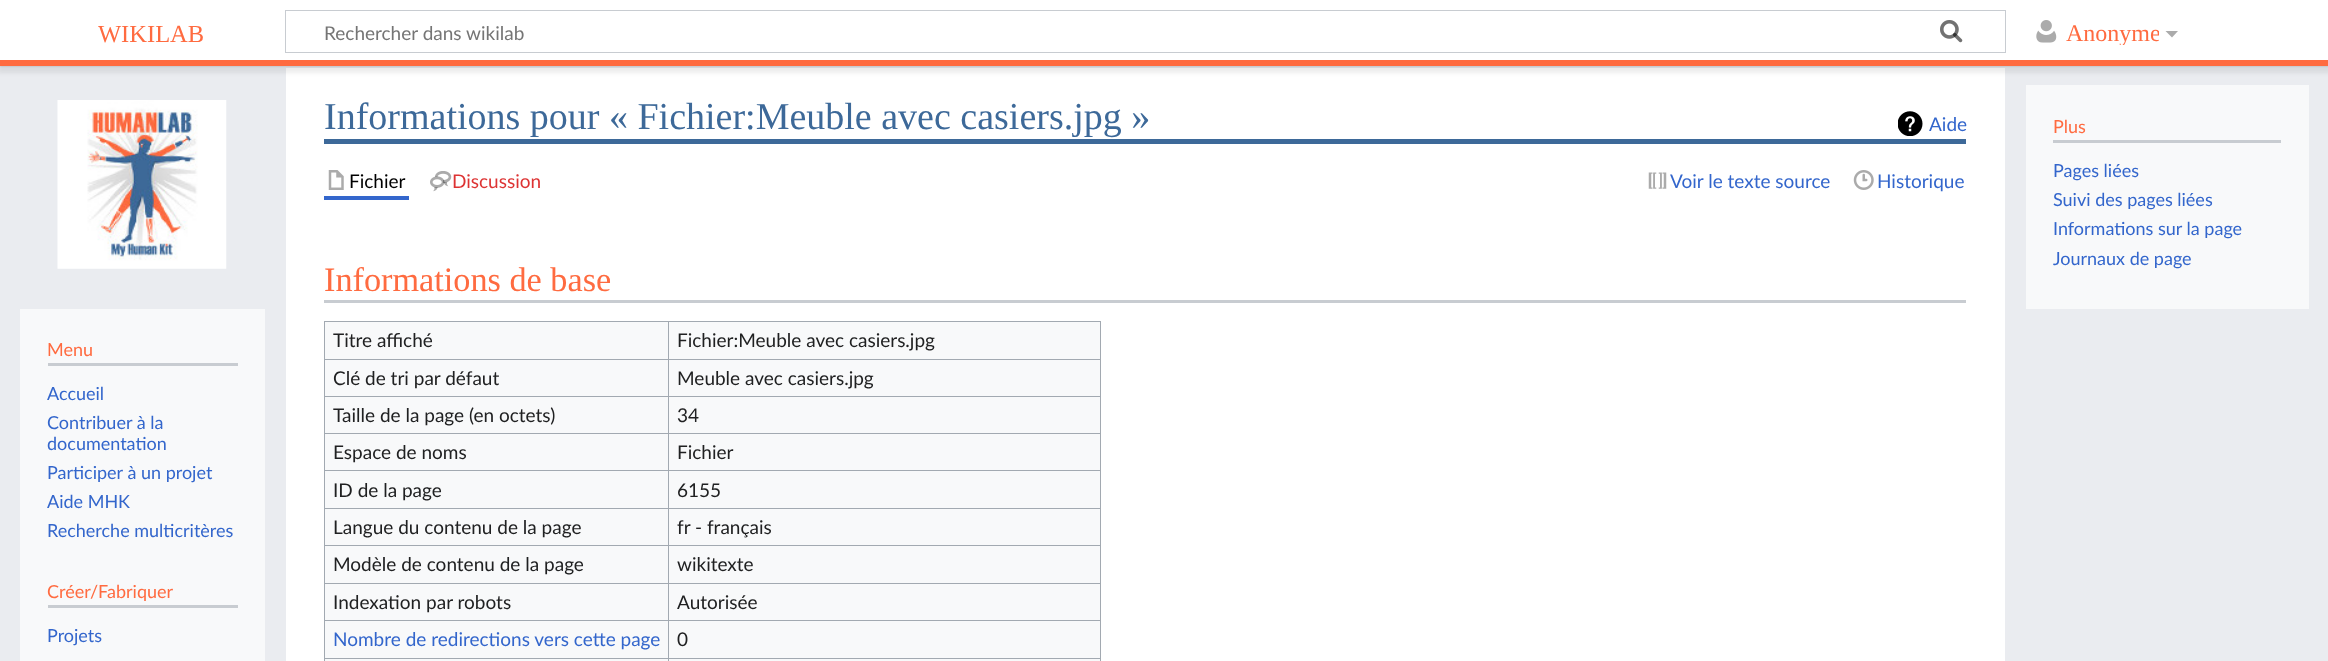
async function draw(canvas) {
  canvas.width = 2328;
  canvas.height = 661;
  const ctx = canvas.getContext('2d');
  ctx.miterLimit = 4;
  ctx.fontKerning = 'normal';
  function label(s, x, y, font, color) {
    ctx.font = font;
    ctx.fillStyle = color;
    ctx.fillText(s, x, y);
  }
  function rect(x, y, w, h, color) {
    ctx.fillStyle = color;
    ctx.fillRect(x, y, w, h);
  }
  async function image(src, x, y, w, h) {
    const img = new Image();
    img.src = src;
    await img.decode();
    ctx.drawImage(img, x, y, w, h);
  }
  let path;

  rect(0, 0, 2328, 661, '#eaecf0');
  rect(286, 68, 1719, 593, '#fff');
  ctx.fillStyle = '#00000033';
  ctx.filter = 'blur(1px)';
  ctx.beginPath();
  ctx.rect(0, 60, 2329, 6);
  ctx.fill();
  ctx.filter = 'none';
  ctx.fillStyle = '#00000012';
  ctx.filter = 'blur(2px)';
  ctx.beginPath();
  ctx.rect(-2, 61, 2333, 12);
  ctx.fill();
  ctx.filter = 'none';
  rect(0, 0, 2328, 60, '#fff');
  label('WIKILAB', 98, 42, '24.5px Liberation Serif', '#ff6b40');
  ctx.strokeStyle = '#c8ccd1';
  ctx.strokeRect(285.5, 10.5, 1720, 42);
  await image('assets/img1.png', 1940, 20, 23, 23);
  label('Rechercher dans wikilab', 324, 40, '19px Lato', '#757575');
  await image('assets/img2.png', 1940, 20, 23, 23);
  await image('assets/img3.png', 2036, 20, 21, 23);
  ctx.save();
  ctx.beginPath();
  ctx.rect(2065, 21, 94, 24);
  ctx.clip();
  label('Anonyme', 2066, 41, '24px Liberation Serif', '#ff6b40');
  ctx.restore();
  ctx.fillStyle = '#ababab';
  path = new Path2D('M2178 31L2172 37.5L2165.5 31Z');
  ctx.fill(path);
  rect(0, 60, 2328, 6, '#ff6b40');
  rect(324, 139, 1642, 5, '#3d6999');
  label('Informations pour « Fichier:Meuble avec casiers.jpg »', 324, 129, '38px Liberation Serif', '#3d6999');
  await image('assets/img4.png', 1898, 111, 25, 25);
  label('Aide', 1929, 131, '19px Lato', '#36c');
  rect(324, 196, 85, 4, '#36c');
  await image('assets/img5.png', 328, 170, 16, 20);
  label('Fichier', 349, 188, '19px Lato', '#000');
  await image('assets/img6.png', 430, 171, 22, 21);
  label('Discussion', 452, 188, '19px Lato', '#d33');
  await image('assets/img7.png', 1648, 172, 19, 17);
  label('Voir le texte source', 1670, 188, '19px Lato', '#36c');
  await image('assets/img8.png', 1853, 170, 21, 20);
  label('Historique', 1877, 188, '19px Lato', '#36c');
  rect(324, 300, 1642, 3, '#c8ccd1');
  label('Informations de base', 324, 291, '34.25px Liberation Serif', '#ff6b40');
  rect(325, 322, 775, 339, '#f8f9fa');
  rect(324, 321, 777, 1, '#a2a9b1');
  rect(1100, 321, 1, 340, '#a2a9b1');
  rect(324, 321, 1, 340, '#a2a9b1');
  label('Titre affiché', 333, 347, '19px Lato', '#202122');
  rect(668, 359, 433, 1, '#a2a9b1');
  rect(668, 396, 433, 1, '#a2a9b1');
  rect(668, 433, 433, 1, '#a2a9b1');
  rect(668, 470, 433, 1, '#a2a9b1');
  rect(668, 508, 433, 1, '#a2a9b1');
  rect(668, 545, 433, 1, '#a2a9b1');
  rect(668, 583, 433, 1, '#a2a9b1');
  rect(668, 620, 433, 1, '#a2a9b1');
  rect(668, 658, 433, 1, '#a2a9b1');
  rect(668, 658, 1, 3, '#a2a9b1');
  rect(324, 658, 345, 1, '#a2a9b1');
  rect(668, 620, 1, 39, '#a2a9b1');
  rect(324, 620, 345, 1, '#a2a9b1');
  rect(668, 583, 1, 38, '#a2a9b1');
  rect(324, 583, 345, 1, '#a2a9b1');
  rect(668, 545, 1, 39, '#a2a9b1');
  rect(324, 545, 345, 1, '#a2a9b1');
  rect(668, 508, 1, 38, '#a2a9b1');
  rect(324, 508, 345, 1, '#a2a9b1');
  rect(668, 470, 1, 39, '#a2a9b1');
  rect(324, 470, 345, 1, '#a2a9b1');
  rect(668, 433, 1, 38, '#a2a9b1');
  rect(324, 433, 345, 1, '#a2a9b1');
  rect(668, 396, 1, 38, '#a2a9b1');
  rect(324, 396, 345, 1, '#a2a9b1');
  rect(668, 359, 1, 39, '#a2a9b1');
  rect(324, 359, 345, 1, '#a2a9b1');
  rect(668, 321, 1, 39, '#a2a9b1');
  label('Fichier:Meuble avec casiers.jpg', 677, 347, '19px Lato', '#202122');
  label('Clé de tri par défaut', 333, 385, '19px Lato', '#202122');
  label('Meuble avec casiers.jpg', 677, 385, '19px Lato', '#202122');
  label('Taille de la page (en octets)', 333, 422, '19px Lato', '#202122');
  label('34', 677, 422, '19px Lato', '#202122');
  label('Espace de noms', 333, 459, '19px Lato', '#202122');
  label('Fichier', 677, 459, '19px Lato', '#202122');
  label('ID de la page', 333, 497, '19px Lato', '#202122');
  label('6155', 677, 497, '19px Lato', '#202122');
  label('Langue du contenu de la page', 333, 534, '19px Lato', '#202122');
  label('fr - français', 677, 534, '19px Lato', '#202122');
  label('Modèle de contenu de la page', 333, 571, '19px Lato', '#202122');
  label('wikitexte', 677, 571, '19px Lato', '#202122');
  label('Indexation par robots', 333, 609, '19px Lato', '#202122');
  label('Autorisée', 677, 609, '19px Lato', '#202122');
  label('Nombre de redirections vers cette page', 333, 646, '19px Lato', '#36c');
  label('0', 677, 646, '19px Lato', '#202122');
  rect(2026, 85, 283, 224, '#f8f9fa');
  rect(2053, 140, 228, 3, '#c8ccd1');
  label('Plus', 2053, 133, '18px Lato', '#ff6b40');
  label('Pages liées', 2053, 177, '18px Lato', '#36c');
  label('Suivi des pages liées', 2053, 206, '18px Lato', '#36c');
  label('Informations sur la page', 2053, 235, '18px Lato', '#36c');
  label('Journaux de page', 2053, 265, '18px Lato', '#36c');
  await image('assets/img9.png', 57, 100, 170, 169);
  rect(20, 309, 245, 352, '#f8f9fa');
  rect(48, 363, 190, 3, '#c8ccd1');
  label('Menu', 47, 356, '18px Lato', '#ff6b40');
  label('Accueil', 47, 400, '18px Lato', '#36c');
  label('Contribuer à la', 47, 429, '18px Lato', '#36c');
  label('documentation', 47, 450, '18px Lato', '#36c');
  label('Participer à un projet', 47, 479, '18px Lato', '#36c');
  label('Aide MHK', 47, 508, '18px Lato', '#36c');
  label('Recherche multicritères', 47, 537, '18px Lato', '#36c');
  rect(48, 605, 190, 3, '#c8ccd1');
  label('Créer/Fabriquer', 47, 598, '18px Lato', '#ff6b40');
  label('Projets', 47, 642, '18px Lato', '#36c');
}

draw(document.querySelector('canvas'));
